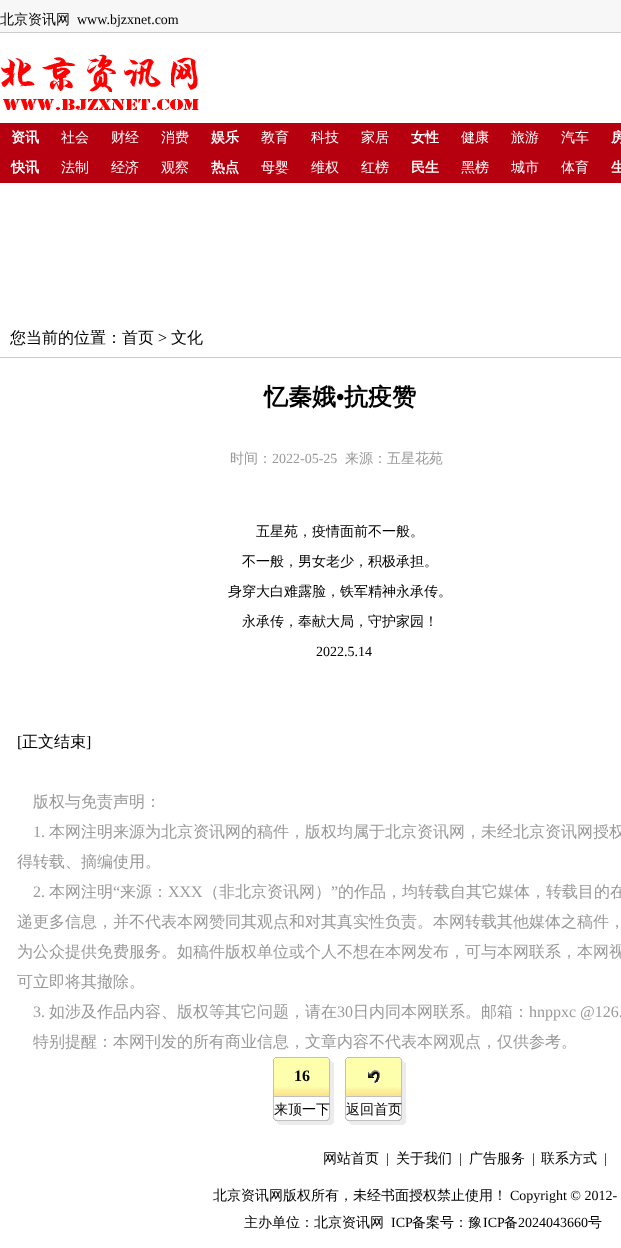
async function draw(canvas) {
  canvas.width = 621;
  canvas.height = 1248;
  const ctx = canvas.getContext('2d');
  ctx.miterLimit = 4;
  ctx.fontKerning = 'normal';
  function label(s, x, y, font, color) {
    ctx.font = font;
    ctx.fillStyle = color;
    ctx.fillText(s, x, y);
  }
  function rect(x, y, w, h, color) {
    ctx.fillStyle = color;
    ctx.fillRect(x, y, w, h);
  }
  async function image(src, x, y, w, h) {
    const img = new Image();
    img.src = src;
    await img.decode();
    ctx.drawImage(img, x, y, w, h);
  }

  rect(0, 0, 621, 1248, '#fff');
  rect(0, 0, 621, 32, '#f7f7f7');
  rect(0, 32, 621, 1, '#ccc');
  label('北京资讯网', 0, 24, '500 14px WenQuanYi Zen Hei', '#000');
  label('www.bjzxnet.com', 77, 24, '14px Liberation Serif', '#000');
  await image('assets/img1.png', 1, 54, 198, 56);
  rect(0, 123, 621, 60, '#b60010');
  label('资讯', 11, 142, 'bold 14px WenQuanYi Zen Hei', '#fff');
  label('社会', 61, 142, '500 14px WenQuanYi Zen Hei', '#fff');
  label('财经', 111, 142, '500 14px WenQuanYi Zen Hei', '#fff');
  label('消费', 161, 142, '500 14px WenQuanYi Zen Hei', '#fff');
  label('娱乐', 211, 142, 'bold 14px WenQuanYi Zen Hei', '#fff');
  label('教育', 261, 142, '500 14px WenQuanYi Zen Hei', '#fff');
  label('科技', 311, 142, '500 14px WenQuanYi Zen Hei', '#fff');
  label('家居', 361, 142, '500 14px WenQuanYi Zen Hei', '#fff');
  label('女性', 411, 142, 'bold 14px WenQuanYi Zen Hei', '#fff');
  label('健康', 461, 142, '500 14px WenQuanYi Zen Hei', '#fff');
  label('旅游', 511, 142, '500 14px WenQuanYi Zen Hei', '#fff');
  label('汽车', 561, 142, '500 14px WenQuanYi Zen Hei', '#fff');
  label('房', 611, 142, 'bold 14px WenQuanYi Zen Hei', '#fff');
  label('快讯', 11, 172, 'bold 14px WenQuanYi Zen Hei', '#fff');
  label('法制', 61, 172, '500 14px WenQuanYi Zen Hei', '#fff');
  label('经济', 111, 172, '500 14px WenQuanYi Zen Hei', '#fff');
  label('观察', 161, 172, '500 14px WenQuanYi Zen Hei', '#fff');
  label('热点', 211, 172, 'bold 14px WenQuanYi Zen Hei', '#fff');
  label('母婴', 261, 172, '500 14px WenQuanYi Zen Hei', '#fff');
  label('维权', 311, 172, '500 14px WenQuanYi Zen Hei', '#fff');
  label('红榜', 361, 172, '500 14px WenQuanYi Zen Hei', '#fff');
  label('民生', 411, 172, 'bold 14px WenQuanYi Zen Hei', '#fff');
  label('黑榜', 461, 172, '500 14px WenQuanYi Zen Hei', '#fff');
  label('城市', 511, 172, '500 14px WenQuanYi Zen Hei', '#fff');
  label('体育', 561, 172, '500 14px WenQuanYi Zen Hei', '#fff');
  label('生', 611, 172, 'bold 14px WenQuanYi Zen Hei', '#fff');
  rect(0, 357, 621, 1, '#ccc');
  label('您当前的位置：首页', 10, 343, '500 16px WenQuanYi Zen Hei', '#000');
  label('>', 158, 343, '16px Liberation Serif', '#000');
  label('文化', 171, 343, '500 16px WenQuanYi Zen Hei', '#000');
  label('忆秦娥', 264, 405, 'bold 24px WenQuanYi Zen Hei', '#000');
  label('•', 336, 405, 'bold 24px Liberation Serif', '#000');
  label('抗疫赞', 344, 405, 'bold 24px WenQuanYi Zen Hei', '#000');
  label('时间：', 230, 463, '500 14px WenQuanYi Zen Hei', '#999');
  label('2022-05-25', 272, 463, '14px Liberation Serif', '#999');
  label('来源：五星花苑', 345, 463, '500 14px WenQuanYi Zen Hei', '#999');
  label('五星苑，疫情面前不一般。', 256, 536, '500 14px WenQuanYi Zen Hei', '#000');
  label('不一般，男女老少，积极承担。', 242, 566, '500 14px WenQuanYi Zen Hei', '#000');
  label('身穿大白难露脸，铁军精神永承传。', 228, 596, '500 14px WenQuanYi Zen Hei', '#000');
  label('永承传，奉献大局，守护家园！', 242, 626, '500 14px WenQuanYi Zen Hei', '#000');
  label('2022.5.14', 316, 656, '14px Liberation Serif', '#000');
  label('[', 17, 747, '16px Liberation Serif', '#000');
  label('正文结束', 22, 747, '500 16px WenQuanYi Zen Hei', '#000');
  label(']', 86, 747, '16px Liberation Serif', '#000');
  label('版权与免责声明：', 33, 807, '500 16px WenQuanYi Zen Hei', '#999');
  label('1.', 33, 837, '16px Liberation Serif', '#999');
  label('本网注明来源为北京资讯网的稿件，版权均属于北京资讯网，未经北京资讯网授权', 49, 837, '500 16px WenQuanYi Zen Hei', '#999');
  label('得转载、摘编使用。', 17, 867, '500 16px WenQuanYi Zen Hei', '#999');
  label('2.', 33, 897, '16px Liberation Serif', '#999');
  label('本网注明', 49, 897, '500 16px WenQuanYi Zen Hei', '#999');
  label('“', 113, 897, '16px Liberation Serif', '#999');
  label('来源：', 120, 897, '500 16px WenQuanYi Zen Hei', '#999');
  label('XXX', 168, 897, '16px Liberation Serif', '#999');
  label('（非北京资讯网）', 203, 897, '500 16px WenQuanYi Zen Hei', '#999');
  label('”', 331, 897, '16px Liberation Serif', '#999');
  label('的作品，均转载自其它媒体，转载目的在', 338, 897, '500 16px WenQuanYi Zen Hei', '#999');
  label('递更多信息，并不代表本网赞同其观点和对其真实性负责。本网转载其他媒体之稿件，', 17, 927, '500 16px WenQuanYi Zen Hei', '#999');
  label('为公众提供免费服务。如稿件版权单位或个人不想在本网发布，可与本网联系，本网视', 17, 957, '500 16px WenQuanYi Zen Hei', '#999');
  label('可立即将其撤除。', 17, 987, '500 16px WenQuanYi Zen Hei', '#999');
  label('3.', 33, 1017, '16px Liberation Serif', '#999');
  label('如涉及作品内容、版权等其它问题，请在', 49, 1017, '500 16px WenQuanYi Zen Hei', '#999');
  label('30', 337, 1017, '16px Liberation Serif', '#999');
  label('日内同本网联系。邮箱：', 353, 1017, '500 16px WenQuanYi Zen Hei', '#999');
  label('hnppxc @126.', 529, 1017, '16px Liberation Serif', '#999');
  label('特别提醒：本网刊发的所有商业信息，文章内容不代表本网观点，仅供参考。', 33, 1047, '500 16px WenQuanYi Zen Hei', '#999');
  await image('assets/img2.png', 273, 1057, 61, 68);
  label('16', 294, 1081, 'bold 16px Liberation Serif', '#000');
  label('来顶一下', 274, 1114, '500 14px WenQuanYi Zen Hei', '#000');
  await image('assets/img2.png', 345, 1057, 61, 68);
  await image('assets/img3.png', 368, 1070, 12, 13);
  label('返回首页', 346, 1114, '500 14px WenQuanYi Zen Hei', '#000');
  label('网站首页', 323, 1163, '500 14px WenQuanYi Zen Hei', '#000');
  label('|', 386, 1163, '14px Liberation Serif', '#000');
  label('关于我们', 396, 1163, '500 14px WenQuanYi Zen Hei', '#000');
  label('|', 459, 1163, '14px Liberation Serif', '#000');
  label('广告服务', 469, 1163, '500 14px WenQuanYi Zen Hei', '#000');
  label('|', 532, 1163, '14px Liberation Serif', '#000');
  label('联系方式', 541, 1163, '500 14px WenQuanYi Zen Hei', '#000');
  label('|', 604, 1163, '14px Liberation Serif', '#000');
  label('北京资讯网版权所有，未经书面授权禁止使用！', 213, 1200, '500 14px WenQuanYi Zen Hei', '#000');
  label('Copyright © 2012-', 510, 1200, '14px Liberation Serif', '#000');
  label('主办单位：北京资讯网', 244, 1227, '500 14px WenQuanYi Zen Hei', '#000');
  label('ICP', 391, 1227, '14px Liberation Serif', '#000');
  label('备案号：豫', 412, 1227, '500 14px WenQuanYi Zen Hei', '#000');
  label('ICP', 483, 1227, '14px Liberation Serif', '#000');
  label('备', 504, 1227, '500 14px WenQuanYi Zen Hei', '#000');
  label('2024043660', 518, 1227, '14px Liberation Serif', '#000');
  label('号', 588, 1227, '500 14px WenQuanYi Zen Hei', '#000');
}

draw(document.querySelector('canvas'));
